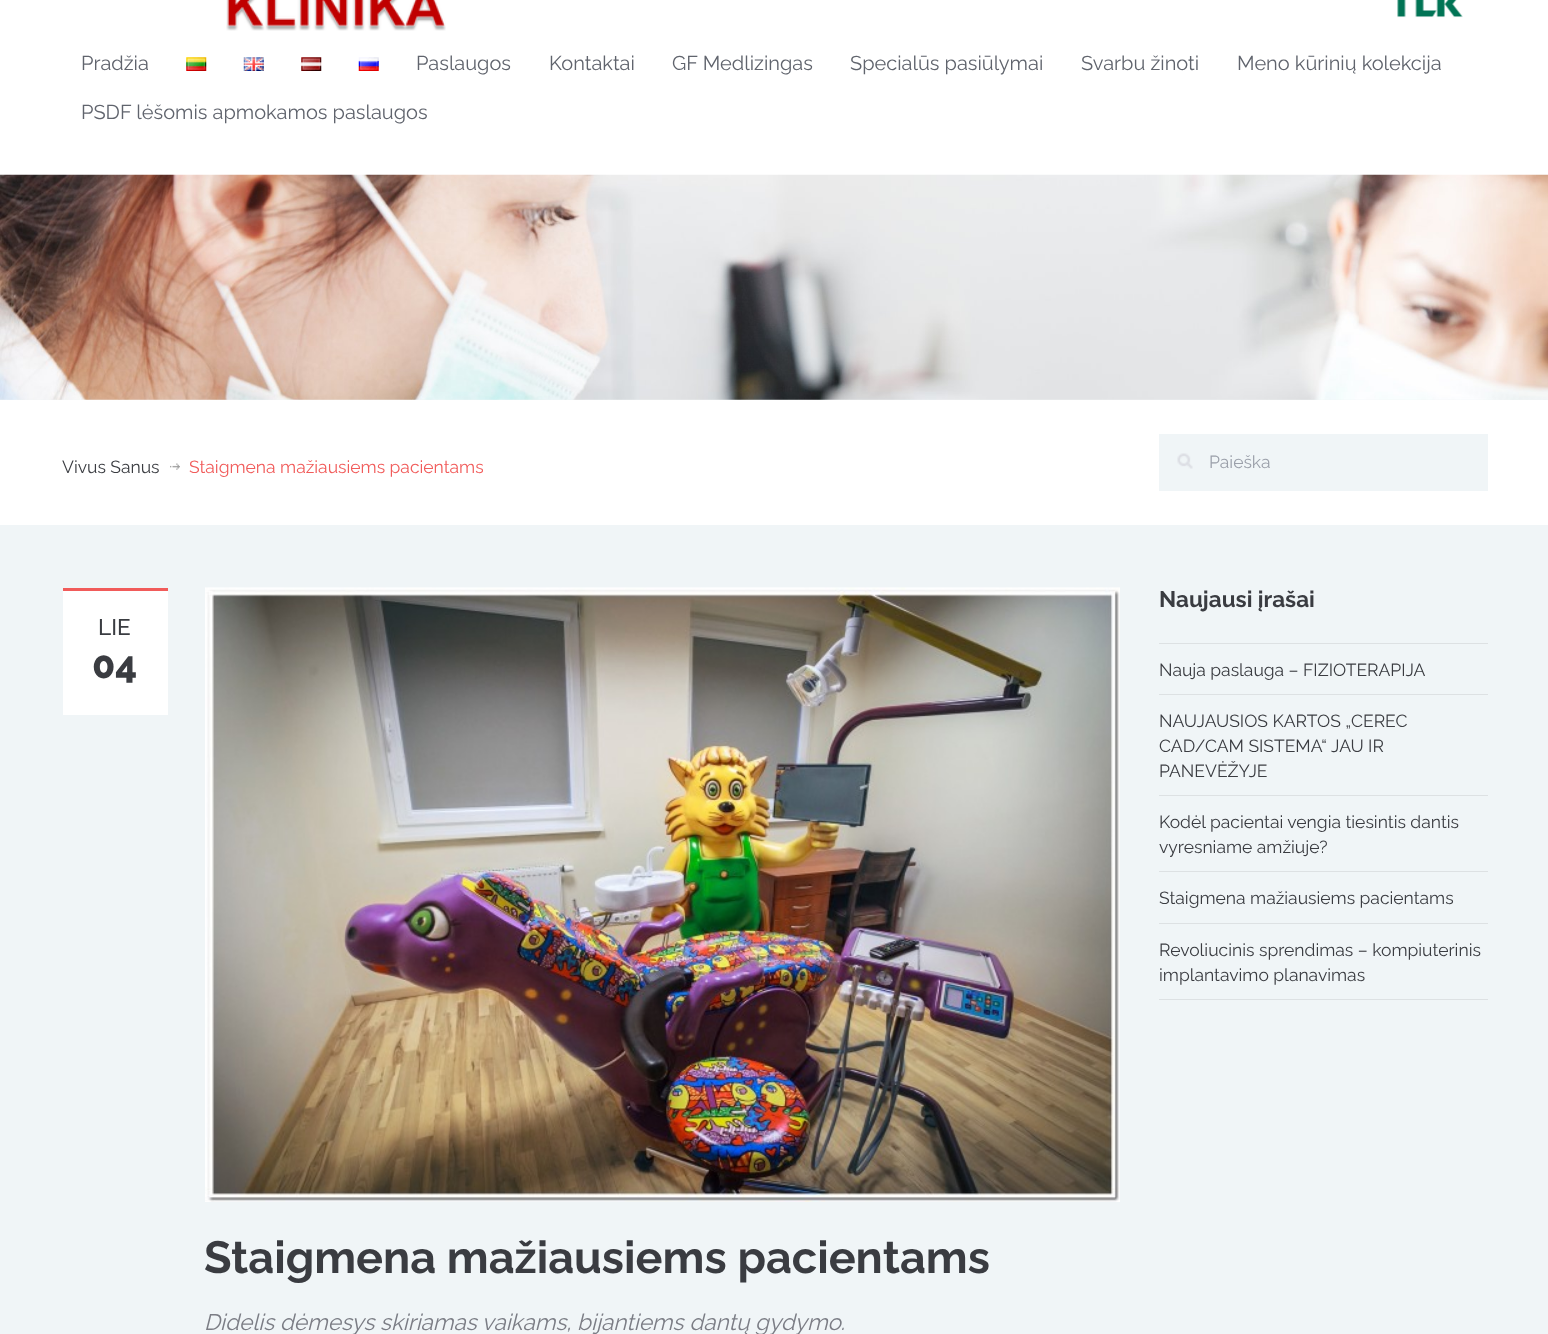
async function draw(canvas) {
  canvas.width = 1548;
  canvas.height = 1334;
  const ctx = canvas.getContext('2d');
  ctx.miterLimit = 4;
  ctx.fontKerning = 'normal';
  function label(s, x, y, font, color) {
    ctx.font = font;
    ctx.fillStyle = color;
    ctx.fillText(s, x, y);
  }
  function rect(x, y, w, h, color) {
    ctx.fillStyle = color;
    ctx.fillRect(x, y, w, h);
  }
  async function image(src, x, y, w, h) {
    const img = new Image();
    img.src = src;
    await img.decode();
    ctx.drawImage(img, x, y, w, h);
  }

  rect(0, 0, 1548, 1334, '#f0f5f7');
  rect(0, 0, 1548, 175, '#fff');
  await image('assets/img1.png', 226, 0, 220, 31);
  await image('assets/img2.png', 1397, 0, 66, 18);
  label('Pradžia', 81, 70, '20px Raleway', '#60646d');
  await image('assets/img3.png', 186, 57, 21, 14);
  await image('assets/img4.png', 243, 57, 21, 14);
  await image('assets/img5.png', 301, 57, 21, 14);
  await image('assets/img6.png', 358, 57, 21, 14);
  label('Paslaugos', 416, 70, '20px Raleway', '#60646d');
  label('Kontaktai', 549, 70, '20px Raleway', '#60646d');
  label('GF Medlizingas', 672, 70, '20px Raleway', '#60646d');
  label('Specialūs pasiūlymai', 850, 70, '20px Raleway', '#60646d');
  label('Svarbu žinoti', 1081, 70, '20px Raleway', '#60646d');
  label('Meno kūrinių kolekcija', 1237, 70, '20px Raleway', '#60646d');
  label('PSDF lėšomis apmokamos paslaugos', 81, 119, '20px Raleway', '#60646d');
  await image('assets/img7.png', 0, 174, 1548, 226);
  rect(0, 400, 1548, 125, '#fff');
  label('Vivus Sanus', 62, 473, '17.5px Raleway', '#3a3c41');
  await image('assets/img8.png', 170, 463, 10, 7);
  label('Staigmena mažiausiems pacientams', 189, 473, '17.5px Raleway', '#f15b5a');
  rect(1159, 434, 329, 57, '#f0f5f7');
  await image('assets/img9.png', 1177, 453, 16, 16);
  label('Paieška', 1209, 468, '17.5px Raleway', '#9ba0aa');
  rect(63, 591, 105, 124, '#fff');
  rect(63, 588, 105, 3, '#f15b5a');
  label('LIE', 98, 635, '500 22.5px Raleway', '#3a3c41');
  label('04', 92, 678, '800 38px Raleway', '#3a3c41');
  await image('assets/img10.png', 205, 587, 915, 615);
  label('Staigmena mažiausiems pacientams', 204, 1273, 'bold 45px Raleway', '#3a3c41');
  label('Didelis dėmesys skiriamas vaikams, bijantiems dantų gydymo.', 204, 1330, 'italic 22.5px Raleway', '#7b7d85');
  label('Naujausi įrašai', 1159, 607, 'bold 22.5px Raleway', '#3a3c41');
  rect(1159, 643, 329, 1, '#dde1e3');
  rect(1159, 694, 329, 1, '#dde1e3');
  label('Nauja paslauga – FIZIOTERAPIJA', 1159, 676, '17.5px Raleway', '#3a3c41');
  rect(1159, 795, 329, 1, '#dde1e3');
  label('NAUJAUSIOS KARTOS „CEREC', 1159, 727, '17.5px Raleway', '#3a3c41');
  label('CAD/CAM SISTEMA“', 1159, 752, '17.5px Raleway', '#3a3c41');
  label('JAU IR', 1331, 752, '17.5px Raleway', '#3a3c41');
  label('PANEVĖŽYJE', 1159, 777, '17.5px Raleway', '#3a3c41');
  rect(1159, 871, 329, 1, '#dde1e3');
  label('Kodėl pacientai vengia tiesintis dantis', 1159, 828, '17.5px Raleway', '#3a3c41');
  label('vyresniame amžiuje?', 1159, 853, '17.5px Raleway', '#3a3c41');
  rect(1159, 923, 329, 1, '#dde1e3');
  label('Staigmena mažiausiems pacientams', 1159, 904, '17.5px Raleway', '#3a3c41');
  rect(1159, 999, 329, 1, '#dde1e3');
  label('Revoliucinis sprendimas – kompiuterinis', 1159, 956, '17.5px Raleway', '#3a3c41');
  label('implantavimo planavimas', 1159, 981, '17.5px Raleway', '#3a3c41');
}

draw(document.querySelector('canvas'));
